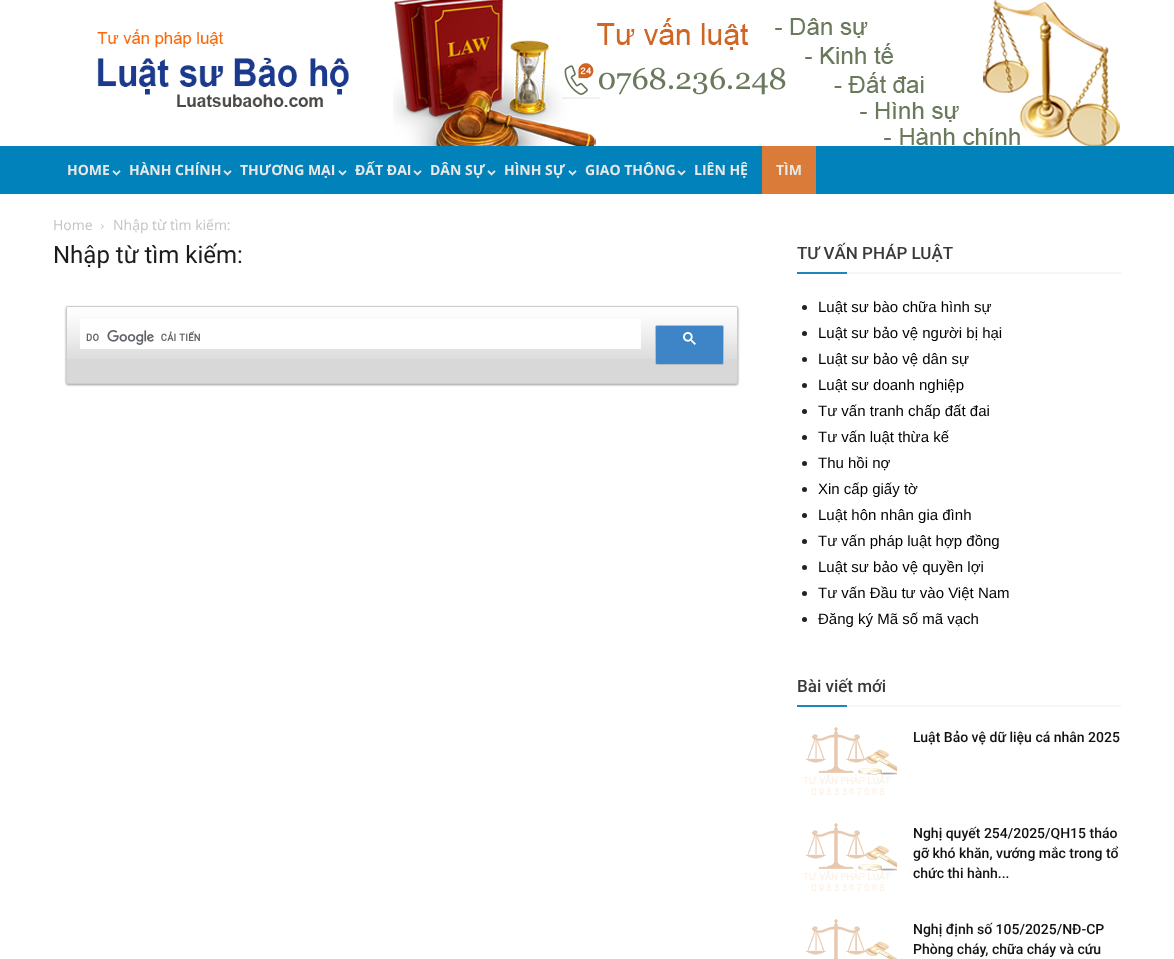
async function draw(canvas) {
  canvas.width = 1174;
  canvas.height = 959;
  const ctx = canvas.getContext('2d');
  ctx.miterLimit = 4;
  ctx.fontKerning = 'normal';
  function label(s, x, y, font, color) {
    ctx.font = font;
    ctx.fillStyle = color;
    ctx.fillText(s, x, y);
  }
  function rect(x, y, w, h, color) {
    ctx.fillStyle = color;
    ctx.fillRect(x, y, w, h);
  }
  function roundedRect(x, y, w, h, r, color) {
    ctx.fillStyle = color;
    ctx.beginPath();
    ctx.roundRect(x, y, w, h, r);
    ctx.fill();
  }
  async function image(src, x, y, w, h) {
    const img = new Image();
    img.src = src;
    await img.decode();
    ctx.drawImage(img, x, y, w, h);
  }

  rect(0, 0, 1174, 959, '#fff');
  await image('assets/img1.png', 97, 29, 253, 78);
  await image('assets/img2.png', 393, 0, 727, 146);
  rect(0, 146, 1174, 48, '#0182ba');
  label('HOME', 67, 175, 'bold 14px Open Sans', '#e8e8e8');
  await image('assets/img3.png', 112, 170, 9, 6);
  label('HÀNH CHÍNH', 129, 175, 'bold 14px Open Sans', '#e8e8e8');
  await image('assets/img3.png', 223, 170, 9, 6);
  label('THƯƠNG MẠI', 240, 175, 'bold 14px Open Sans', '#e8e8e8');
  await image('assets/img3.png', 338, 170, 9, 6);
  label('ĐẤT ĐAI', 355, 175, 'bold 14px Open Sans', '#e8e8e8');
  await image('assets/img3.png', 413, 170, 9, 6);
  label('DÂN SỰ', 430, 175, 'bold 14px Open Sans', '#e8e8e8');
  await image('assets/img3.png', 487, 170, 9, 6);
  label('HÌNH SỰ', 504, 175, 'bold 14px Open Sans', '#e8e8e8');
  await image('assets/img3.png', 568, 170, 9, 6);
  label('GIAO THÔNG', 585, 175, 'bold 14px Open Sans', '#e8e8e8');
  await image('assets/img3.png', 677, 170, 9, 6);
  label('LIÊN HỆ', 694, 175, 'bold 14px Open Sans', '#e8e8e8');
  rect(762, 146, 54, 48, '#db7b3a');
  label('TÌM', 776, 175, 'bold 14px Open Sans', '#e8e8e8');
  label('Home', 53, 230, '14px Open Sans', '#c3c3c3');
  await image('assets/img4.png', 101, 224, 3, 5);
  label('Nhập từ tìm kiếm:', 113, 230, '14px Open Sans', '#c3c3c3');
  label('Nhập từ tìm kiếm:', 53, 263, '24px Roboto', '#1c1c1c');
  ctx.fillStyle = '#999';
  ctx.filter = 'blur(1px)';
  ctx.beginPath();
  ctx.roundRect(66, 307, 672, 78, 2);
  ctx.fill();
  ctx.filter = 'none';
  roundedRect(66, 306, 672, 78, 2, '#d8d8d8');
  await image('assets/img5.png', 66, 307, 672, 52);
  ctx.beginPath();
  ctx.roundRect(66.5, 306.5, 671, 77, 1.5);
  ctx.strokeStyle = '#ccc';
  ctx.stroke();
  rect(80, 319, 561, 30, '#fff');
  await image('assets/img6.png', 86, 330, 114, 15);
  ctx.fillStyle = '#3d85c6';
  ctx.beginPath();
  ctx.roundRect(655.5, 325.5, 68, 39, 1.5);
  ctx.fill();
  ctx.strokeStyle = '#b6bec5';
  ctx.stroke();
  await image('assets/img7.png', 683, 332, 13, 13);
  label('TƯ VẤN PHÁP LUẬT', 797, 259, '500 17px Roboto', '#3a3a3a');
  rect(797, 272, 50, 2, '#1d86ba');
  rect(847, 272, 274, 2, '#f5f5f5');
  ctx.fillStyle = '#222';
  ctx.beginPath();
  ctx.arc(804.5, 307.5, 2.5, 0, 2 * Math.PI);
  ctx.fill();
  label('Luật sư bào chữa hình sự', 818, 312, '15px Liberation Sans', '#000');
  ctx.fillStyle = '#222';
  ctx.beginPath();
  ctx.arc(804.5, 333.5, 2.5, 0, 2 * Math.PI);
  ctx.fill();
  label('Luật sư bảo vệ người bị hại', 818, 338, '15px Liberation Sans', '#000');
  ctx.fillStyle = '#222';
  ctx.beginPath();
  ctx.arc(804.5, 359.5, 2.5, 0, 2 * Math.PI);
  ctx.fill();
  label('Luật sư bảo vệ dân sự', 818, 364, '15px Liberation Sans', '#000');
  ctx.fillStyle = '#222';
  ctx.beginPath();
  ctx.arc(804.5, 385.5, 2.5, 0, 2 * Math.PI);
  ctx.fill();
  label('Luật sư doanh nghiệp', 818, 390, '15px Liberation Sans', '#000');
  ctx.fillStyle = '#222';
  ctx.beginPath();
  ctx.arc(804.5, 411.5, 2.5, 0, 2 * Math.PI);
  ctx.fill();
  label('Tư vấn tranh chấp đất đai', 818, 416, '15px Liberation Sans', '#000');
  ctx.fillStyle = '#222';
  ctx.beginPath();
  ctx.arc(804.5, 437.5, 2.5, 0, 2 * Math.PI);
  ctx.fill();
  label('Tư vấn luật thừa kế', 818, 442, '15px Liberation Sans', '#000');
  ctx.fillStyle = '#222';
  ctx.beginPath();
  ctx.arc(804.5, 463.5, 2.5, 0, 2 * Math.PI);
  ctx.fill();
  label('Thu hồi nợ', 818, 468, '15px Liberation Sans', '#000');
  ctx.fillStyle = '#222';
  ctx.beginPath();
  ctx.arc(804.5, 489.5, 2.5, 0, 2 * Math.PI);
  ctx.fill();
  label('Xin cấp giấy tờ', 818, 494, '15px Liberation Sans', '#000');
  ctx.fillStyle = '#222';
  ctx.beginPath();
  ctx.arc(804.5, 515.5, 2.5, 0, 2 * Math.PI);
  ctx.fill();
  label('Luật hôn nhân gia đình', 818, 520, '15px Liberation Sans', '#000');
  ctx.fillStyle = '#222';
  ctx.beginPath();
  ctx.arc(804.5, 541.5, 2.5, 0, 2 * Math.PI);
  ctx.fill();
  label('Tư vấn pháp luật hợp đồng', 818, 546, '15px Liberation Sans', '#000');
  ctx.fillStyle = '#222';
  ctx.beginPath();
  ctx.arc(804.5, 567.5, 2.5, 0, 2 * Math.PI);
  ctx.fill();
  label('Luật sư bảo vệ quyền lợi', 818, 572, '15px Liberation Sans', '#000');
  ctx.fillStyle = '#222';
  ctx.beginPath();
  ctx.arc(804.5, 593.5, 2.5, 0, 2 * Math.PI);
  ctx.fill();
  label('Tư vấn Đầu tư vào Việt Nam', 818, 598, '15px Liberation Sans', '#000');
  ctx.fillStyle = '#222';
  ctx.beginPath();
  ctx.arc(804.5, 619.5, 2.5, 0, 2 * Math.PI);
  ctx.fill();
  label('Đăng ký Mã số mã vạch', 818, 624, '15px Liberation Sans', '#000');
  label('Bài viết mới', 797, 692, '500 17px Roboto', '#3a3a3a');
  rect(797, 705, 50, 2, '#1d86ba');
  rect(847, 705, 274, 2, '#f5f5f5');
  await image('assets/img8.png', 803, 727, 94, 68);
  label('Luật Bảo vệ dữ liệu cá nhân 2025', 913, 742, '500 14px Roboto', '#111');
  await image('assets/img8.png', 803, 823, 94, 68);
  label('Nghị quyết 254/2025/QH15 tháo', 913, 838, '500 14px Roboto', '#111');
  label('gỡ khó khăn, vướng mắc trong tổ', 913, 858, '500 14px Roboto', '#111');
  label('chức thi hành...', 913, 878, '500 14px Roboto', '#111');
  await image('assets/img9.png', 806, 919, 91, 40);
  label('Nghị định số 105/2025/NĐ-CP', 913, 934, '500 14px Roboto', '#111');
  label('Phòng cháy, chữa cháy và cứu', 913, 954, '500 14px Roboto', '#111');
}

draw(document.querySelector('canvas'));
